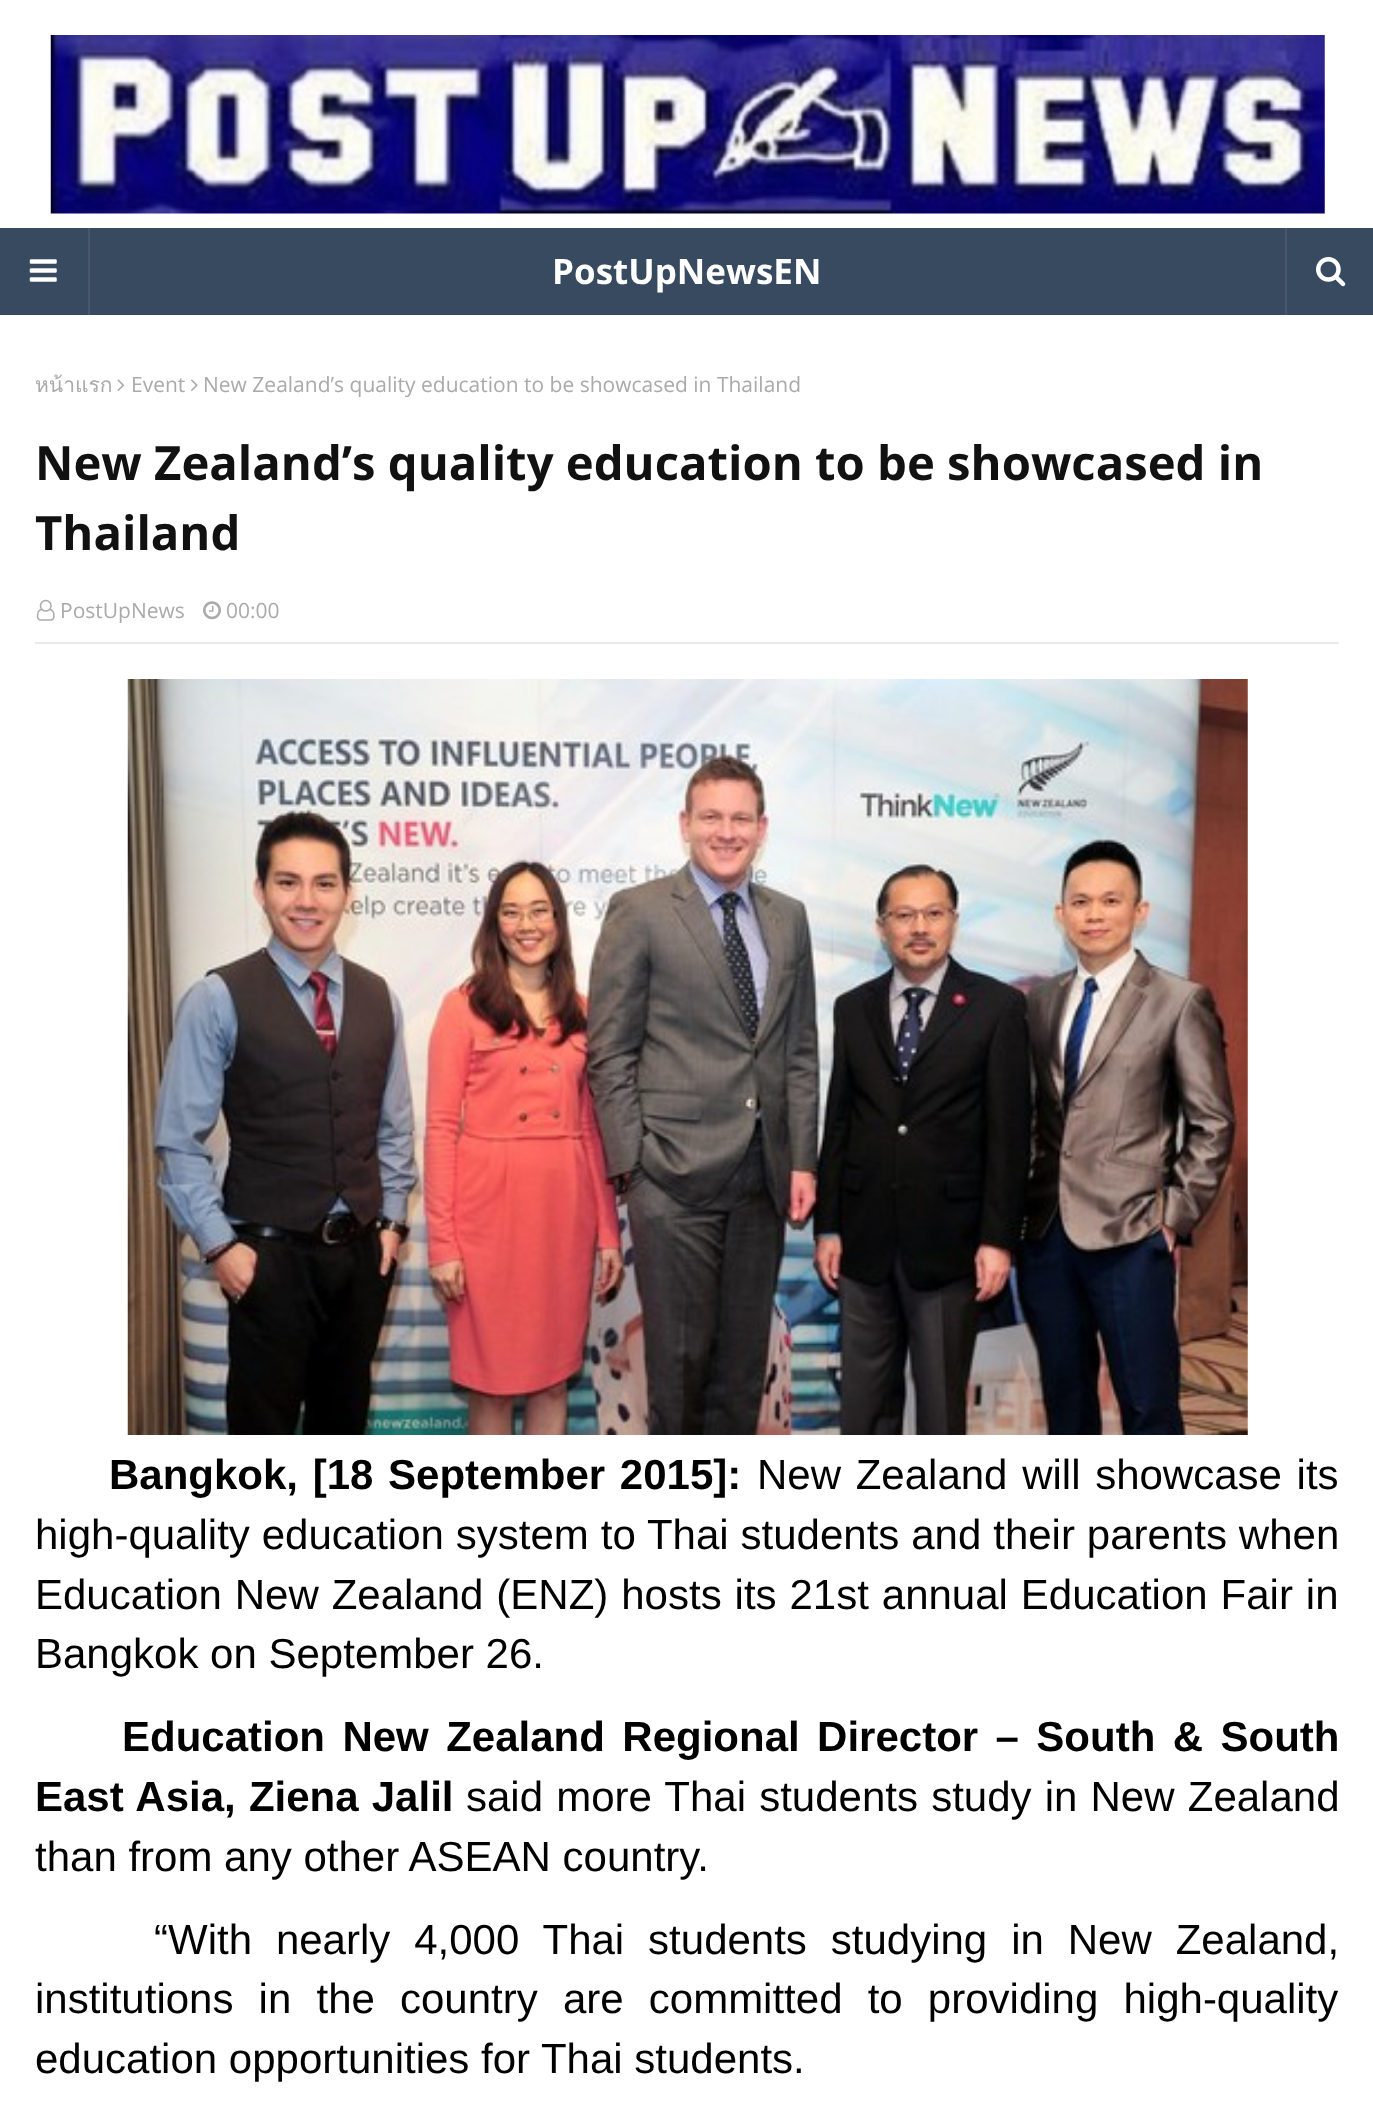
async function draw(canvas) {
  canvas.width = 1373;
  canvas.height = 2120;
  const ctx = canvas.getContext('2d');
  ctx.miterLimit = 4;
  ctx.fontKerning = 'normal';
  function label(s, x, y, font, color) {
    ctx.font = font;
    ctx.fillStyle = color;
    ctx.fillText(s, x, y);
  }
  function rect(x, y, w, h, color) {
    ctx.fillStyle = color;
    ctx.fillRect(x, y, w, h);
  }
  async function image(src, x, y, w, h) {
    const img = new Image();
    img.src = src;
    await img.decode();
    ctx.drawImage(img, x, y, w, h);
  }

  rect(0, 0, 1373, 2120, '#fff');
  await image('assets/img1.png', 50, 35, 1275, 179);
  rect(0, 228, 1373, 87, '#384a5f');
  rect(88, 228, 2, 87, '#48586c');
  await image('assets/img2.png', 29, 259, 28, 23);
  label('PostUpNewsEN', 552, 284, 'bold 35px Open Sans', '#fff');
  rect(1285, 228, 2, 87, '#48586c');
  await image('assets/img3.png', 1316, 257, 30, 30);
  label('หน้าแรก', 35, 392, '21px Loma', '#aaa');
  await image('assets/img4.png', 117, 379, 8, 12);
  label('Event', 131, 392, '21px Open Sans', '#aaa');
  await image('assets/img5.png', 191, 379, 7, 12);
  label('New Zealand’s quality education to be showcased in Thailand', 203, 392, '21px Open Sans', '#aaa');
  label('New Zealand’s quality education to be showcased in', 35, 480, 'bold 47.25px Open Sans', '#111');
  label('Thailand', 35, 550, 'bold 47.25px Open Sans', '#111');
  rect(35, 642, 1304, 2, '#eaeaea');
  await image('assets/img6.png', 36, 599, 19, 22);
  label('PostUpNews', 60, 618, '21px Open Sans', '#aaa');
  await image('assets/img7.png', 203, 601, 18, 19);
  label('00:00', 226, 618, '21px Open Sans', '#aaa');
  await image('assets/img8.png', 127, 679, 1121, 756);
  ctx.wordSpacing = '3px';
  label('Bangkok, [18 September 2015]:', 109, 1489, 'bold 42px Liberation Sans', '#000');
  label('New Zealand will showcase its', 757, 1489, '42px Liberation Sans', '#000');
  ctx.wordSpacing = '0.25px';
  label('high-quality education system to Thai students and their parents when', 35, 1549, '42px Liberation Sans', '#000');
  ctx.wordSpacing = '1.25px';
  label('Education New Zealand (ENZ) hosts its 21st annual Education Fair in', 35, 1609, '42px Liberation Sans', '#000');
  ctx.wordSpacing = '0px';
  label('Bangkok on September 26.', 35, 1668, '42px Liberation Sans', '#000');
  ctx.wordSpacing = '5.75px';
  label('Education New Zealand Regional Director – South & South', 122, 1751, 'bold 42px Liberation Sans', '#000');
  ctx.wordSpacing = '1.5px';
  label('East Asia, Ziena Jalil', 35, 1811, 'bold 42px Liberation Sans', '#000');
  label('said more Thai students study in New Zealand', 466, 1811, '42px Liberation Sans', '#000');
  ctx.wordSpacing = '0px';
  label('than from any other ASEAN country.', 35, 1871, '42px Liberation Sans', '#000');
  ctx.wordSpacing = '12.25px';
  label('“With nearly 4,000 Thai students studying in New Zealand,', 154, 1954, '42px Liberation Sans', '#000');
  ctx.wordSpacing = '13.5px';
  label('institutions in the country are committed to providing high-quality', 35, 2013, '42px Liberation Sans', '#000');
  ctx.wordSpacing = '0px';
  label('education opportunities for Thai students.', 35, 2073, '42px Liberation Sans', '#000');
}

draw(document.querySelector('canvas'));
